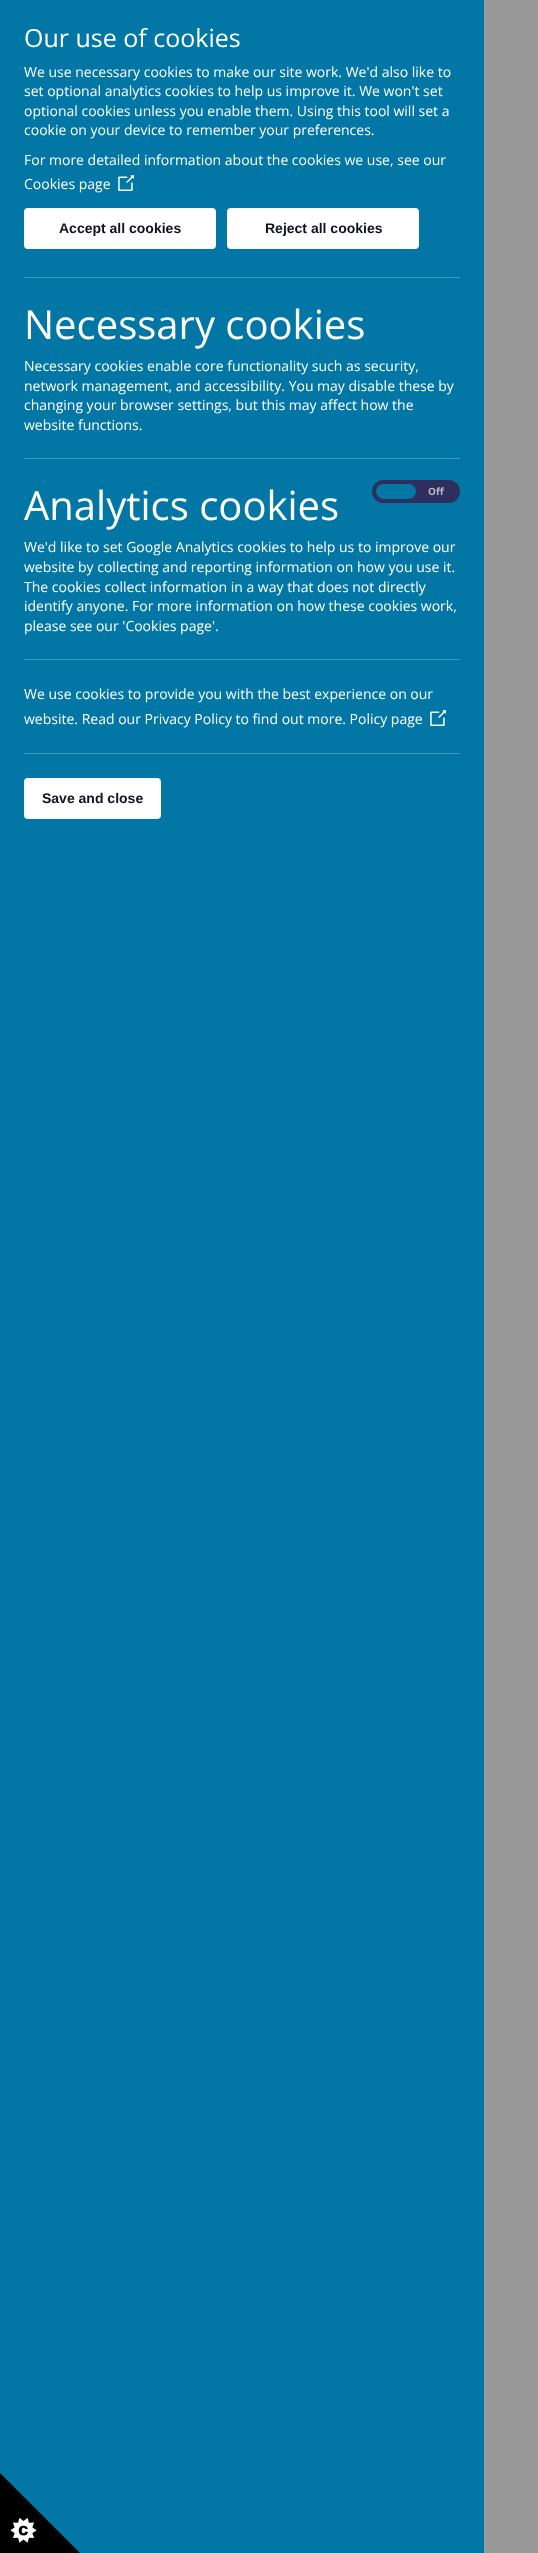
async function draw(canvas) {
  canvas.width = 538;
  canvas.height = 2553;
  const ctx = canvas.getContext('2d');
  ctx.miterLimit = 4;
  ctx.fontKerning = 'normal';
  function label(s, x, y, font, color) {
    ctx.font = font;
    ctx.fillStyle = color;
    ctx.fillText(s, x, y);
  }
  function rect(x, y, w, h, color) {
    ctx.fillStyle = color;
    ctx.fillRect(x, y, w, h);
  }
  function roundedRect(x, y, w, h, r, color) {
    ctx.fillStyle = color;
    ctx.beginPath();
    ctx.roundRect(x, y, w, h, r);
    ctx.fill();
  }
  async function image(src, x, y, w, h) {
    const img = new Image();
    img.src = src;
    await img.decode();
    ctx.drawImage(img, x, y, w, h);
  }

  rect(0, 0, 538, 2553, '#999');
  rect(0, 0, 484, 2553, '#0276a5');
  label('Our use of cookies', 24, 47, '25px Open Sans', '#fff');
  label('We use necessary cookies to make our site work. We\'d also like to', 24, 77, '14px Open Sans', '#fff');
  label('set optional analytics cookies to help us improve it. We won\'t set', 24, 96, '14px Open Sans', '#fff');
  label('optional cookies unless you enable them. Using this tool will set a', 24, 116, '14px Open Sans', '#fff');
  label('cookie on your device to remember your preferences.', 24, 135, '14px Open Sans', '#fff');
  label('For more detailed information about the cookies we use, see our', 24, 165, '14px Open Sans', '#fff');
  label('Cookies page', 24, 189, '14px Open Sans', '#fff');
  await image('assets/img1.png', 118, 175, 16, 16);
  ctx.beginPath();
  ctx.roundRect(25, 209, 190, 39, 3);
  ctx.fill();
  ctx.strokeStyle = '#fff';
  ctx.lineWidth = 2;
  ctx.stroke();
  label('Accept all cookies', 59, 233, 'bold 14px Liberation Sans', '#111125');
  ctx.fillStyle = '#fff';
  ctx.beginPath();
  ctx.roundRect(228, 209, 190, 39, 3);
  ctx.fill();
  ctx.stroke();
  label('Reject all cookies', 265, 233, 'bold 14px Liberation Sans', '#111125');
  rect(24, 277, 436, 1, '#4198bc');
  label('Necessary cookies', 24, 339, '40px Open Sans', '#fff');
  label('Necessary cookies enable core functionality such as security,', 24, 371, '14px Open Sans', '#fff');
  label('network management, and accessibility. You may disable these by', 24, 391, '14px Open Sans', '#fff');
  label('changing your browser settings, but this may affect how the', 24, 410, '14px Open Sans', '#fff');
  label('website functions.', 24, 430, '14px Open Sans', '#fff');
  rect(24, 458, 436, 1, '#4198bc');
  label('Analytics cookies', 24, 520, '40px Open Sans', '#fff');
  ctx.fillStyle = '#2f2f5f';
  ctx.beginPath();
  ctx.roundRect(374, 482, 84, 19, 9.5);
  ctx.fill();
  ctx.strokeStyle = '#2f2f5f';
  ctx.lineWidth = 4;
  ctx.stroke();
  roundedRect(376, 484, 40, 15, 7.5, '#0276a5');
  label('Off', 428, 495, 'bold 10px Open Sans', '#b6b6c7');
  label('We\'d like to set Google Analytics cookies to help us to improve our', 24, 552, '14px Open Sans', '#fff');
  label('website by collecting and reporting information on how you use it.', 24, 572, '14px Open Sans', '#fff');
  label('The cookies collect information in a way that does not directly', 24, 592, '14px Open Sans', '#fff');
  label('identify anyone. For more information on how these cookies work,', 24, 611, '14px Open Sans', '#fff');
  label('please see our \'Cookies page\'.', 24, 631, '14px Open Sans', '#fff');
  rect(24, 659, 436, 1, '#4198bc');
  label('We use cookies to provide you with the best experience on our', 24, 699, '14px Open Sans', '#fff');
  label('website. Read our Privacy Policy to find out more. Policy page', 24, 724, '14px Open Sans', '#fff');
  await image('assets/img1.png', 430, 710, 16, 16);
  rect(24, 753, 436, 1, '#4198bc');
  ctx.fillStyle = '#fff';
  ctx.beginPath();
  ctx.roundRect(25, 779, 135, 39, 3);
  ctx.fill();
  ctx.strokeStyle = '#fff';
  ctx.lineWidth = 2;
  ctx.stroke();
  label('Save and close', 42, 803, 'bold 14px Liberation Sans', '#111125');
  await image('assets/img2.png', 0, 2473, 80, 80);
}

draw(document.querySelector('canvas'));
